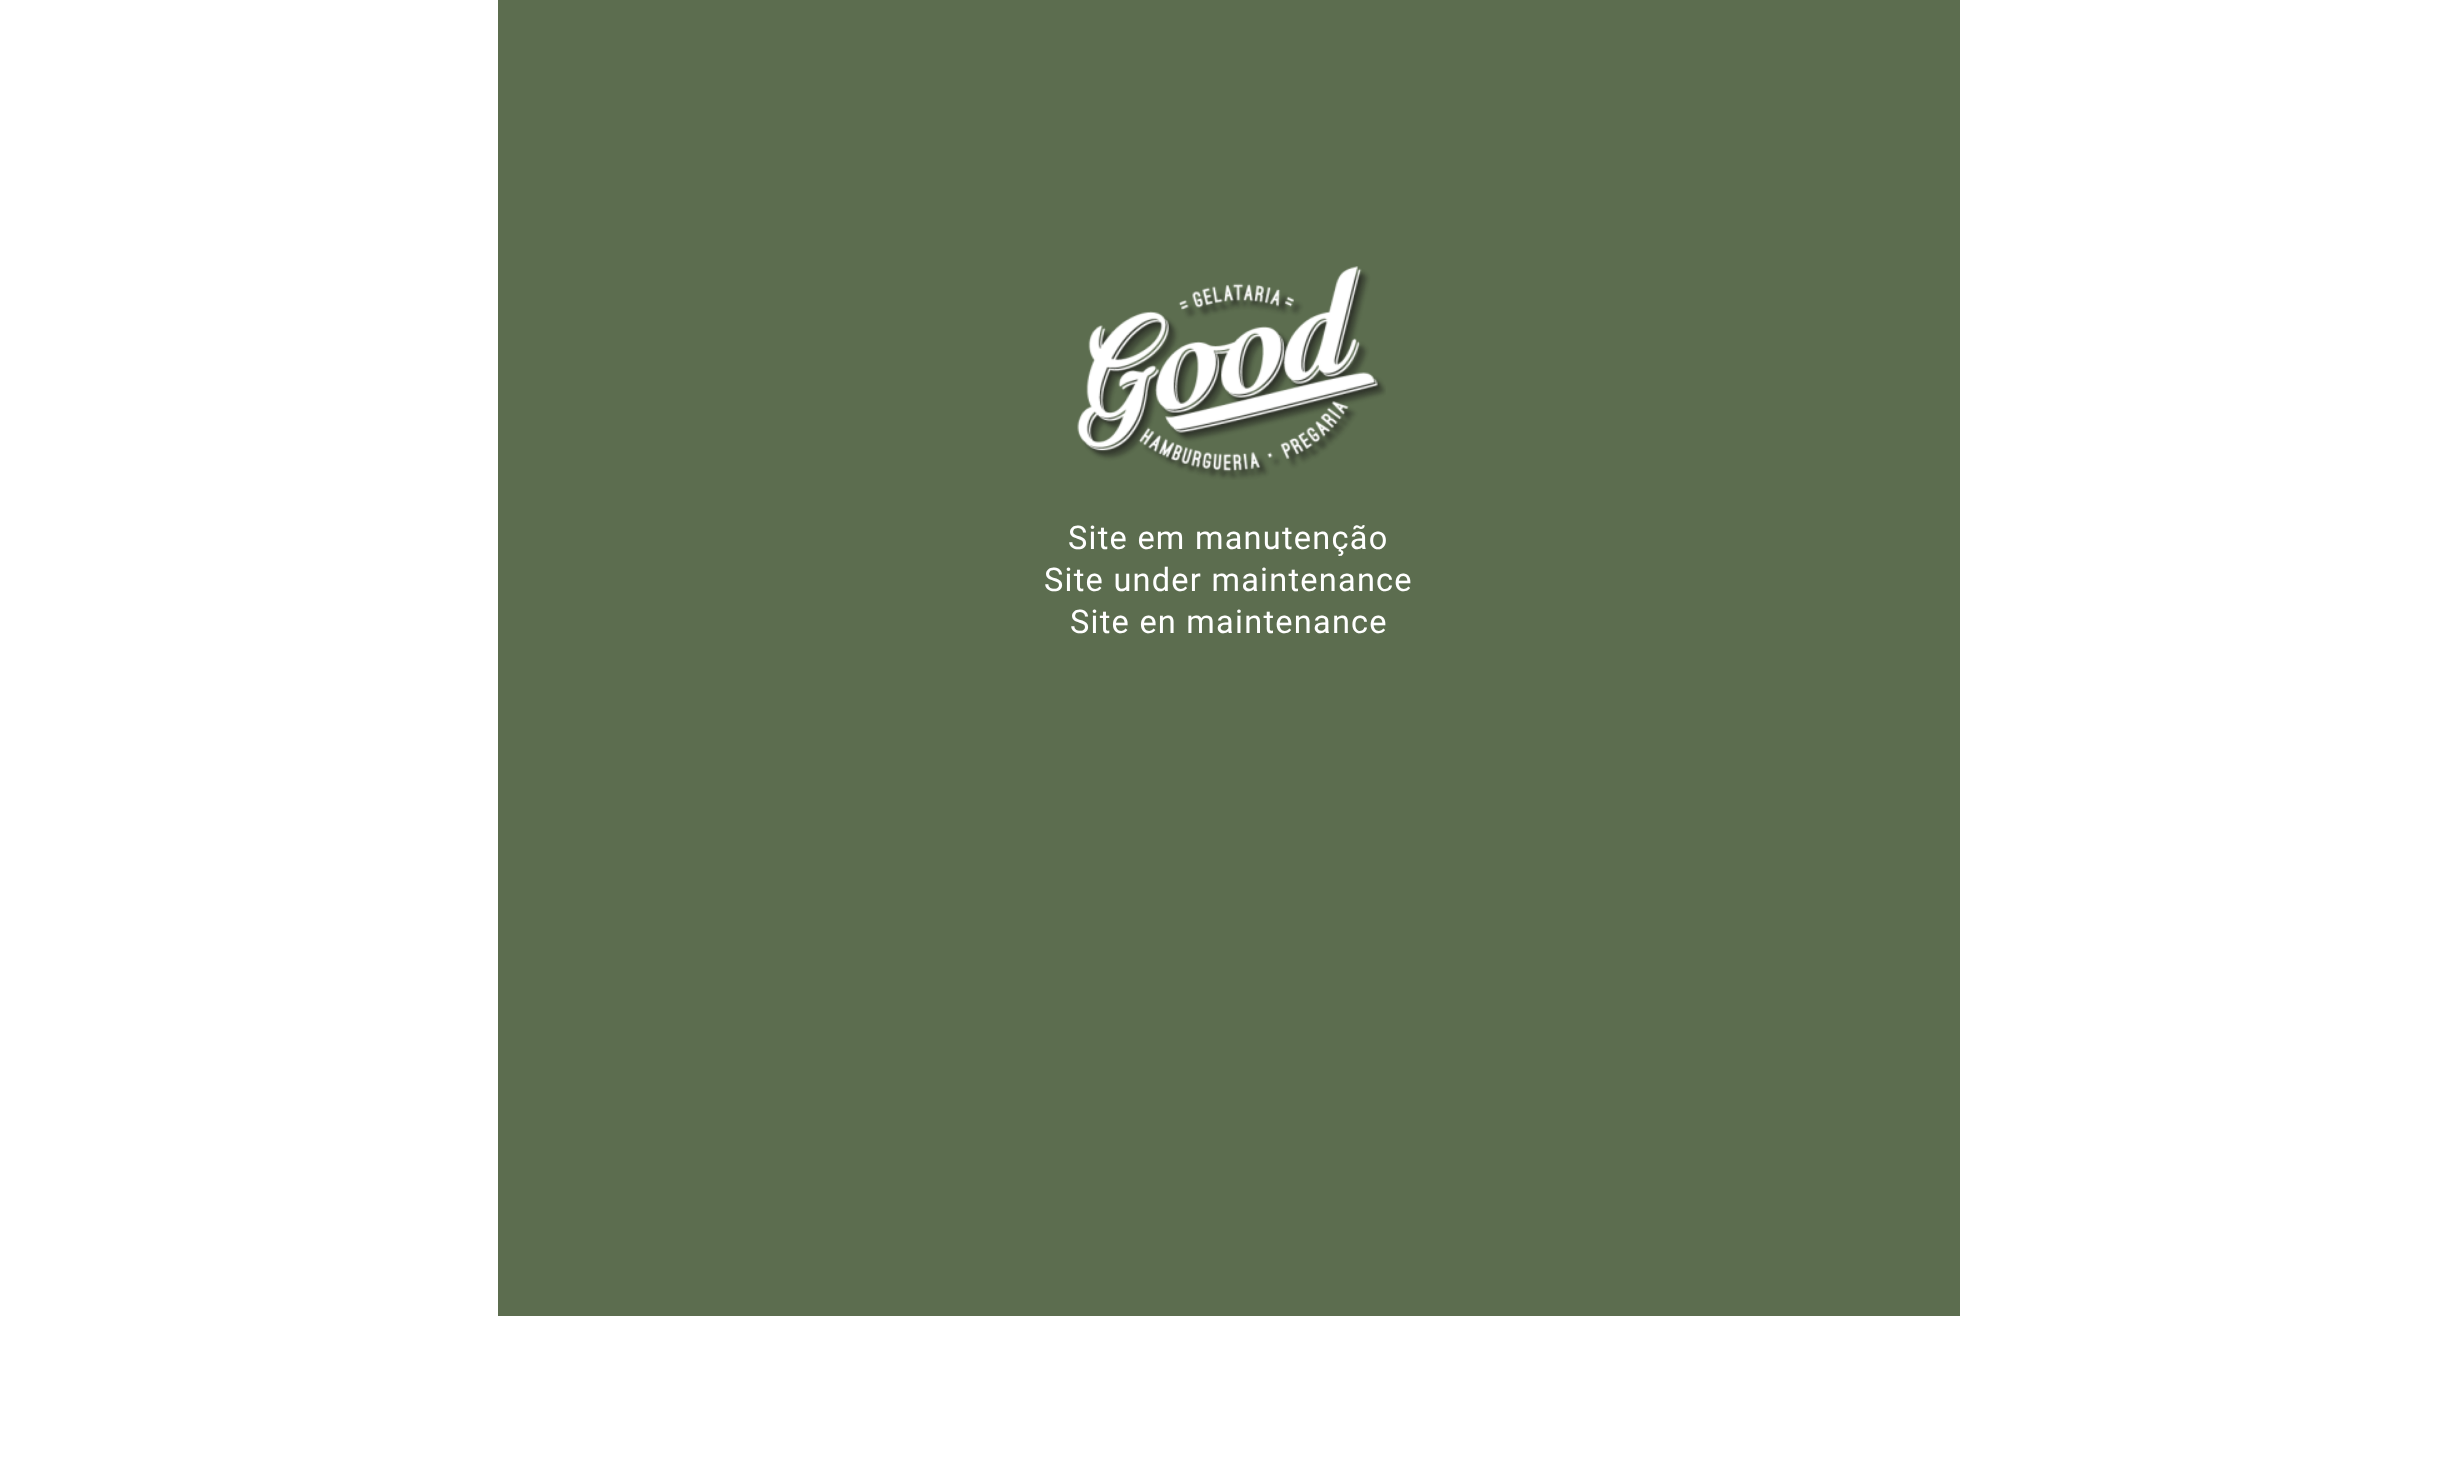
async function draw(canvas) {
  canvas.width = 2457;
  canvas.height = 1481;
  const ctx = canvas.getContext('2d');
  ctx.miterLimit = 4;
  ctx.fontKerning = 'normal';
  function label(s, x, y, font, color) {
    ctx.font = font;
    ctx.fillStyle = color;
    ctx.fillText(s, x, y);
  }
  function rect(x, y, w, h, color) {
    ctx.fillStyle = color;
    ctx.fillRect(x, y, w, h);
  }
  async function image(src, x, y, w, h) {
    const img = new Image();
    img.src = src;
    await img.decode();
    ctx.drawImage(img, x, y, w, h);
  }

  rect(0, 0, 2457, 1481, '#fff');
  rect(498, 0, 1462, 1316, '#5c6d4f');
  await image('assets/img1.png', 1077, 266, 309, 214);
  ctx.letterSpacing = '1.25px';
  label('Site em manutenção', 1068, 549, '32.5px Roboto', '#fff');
  label('Site under maintenance', 1044, 591, '32.5px Roboto', '#fff');
  label('Site en maintenance', 1070, 633, '32.5px Roboto', '#fff');
}

draw(document.querySelector('canvas'));
